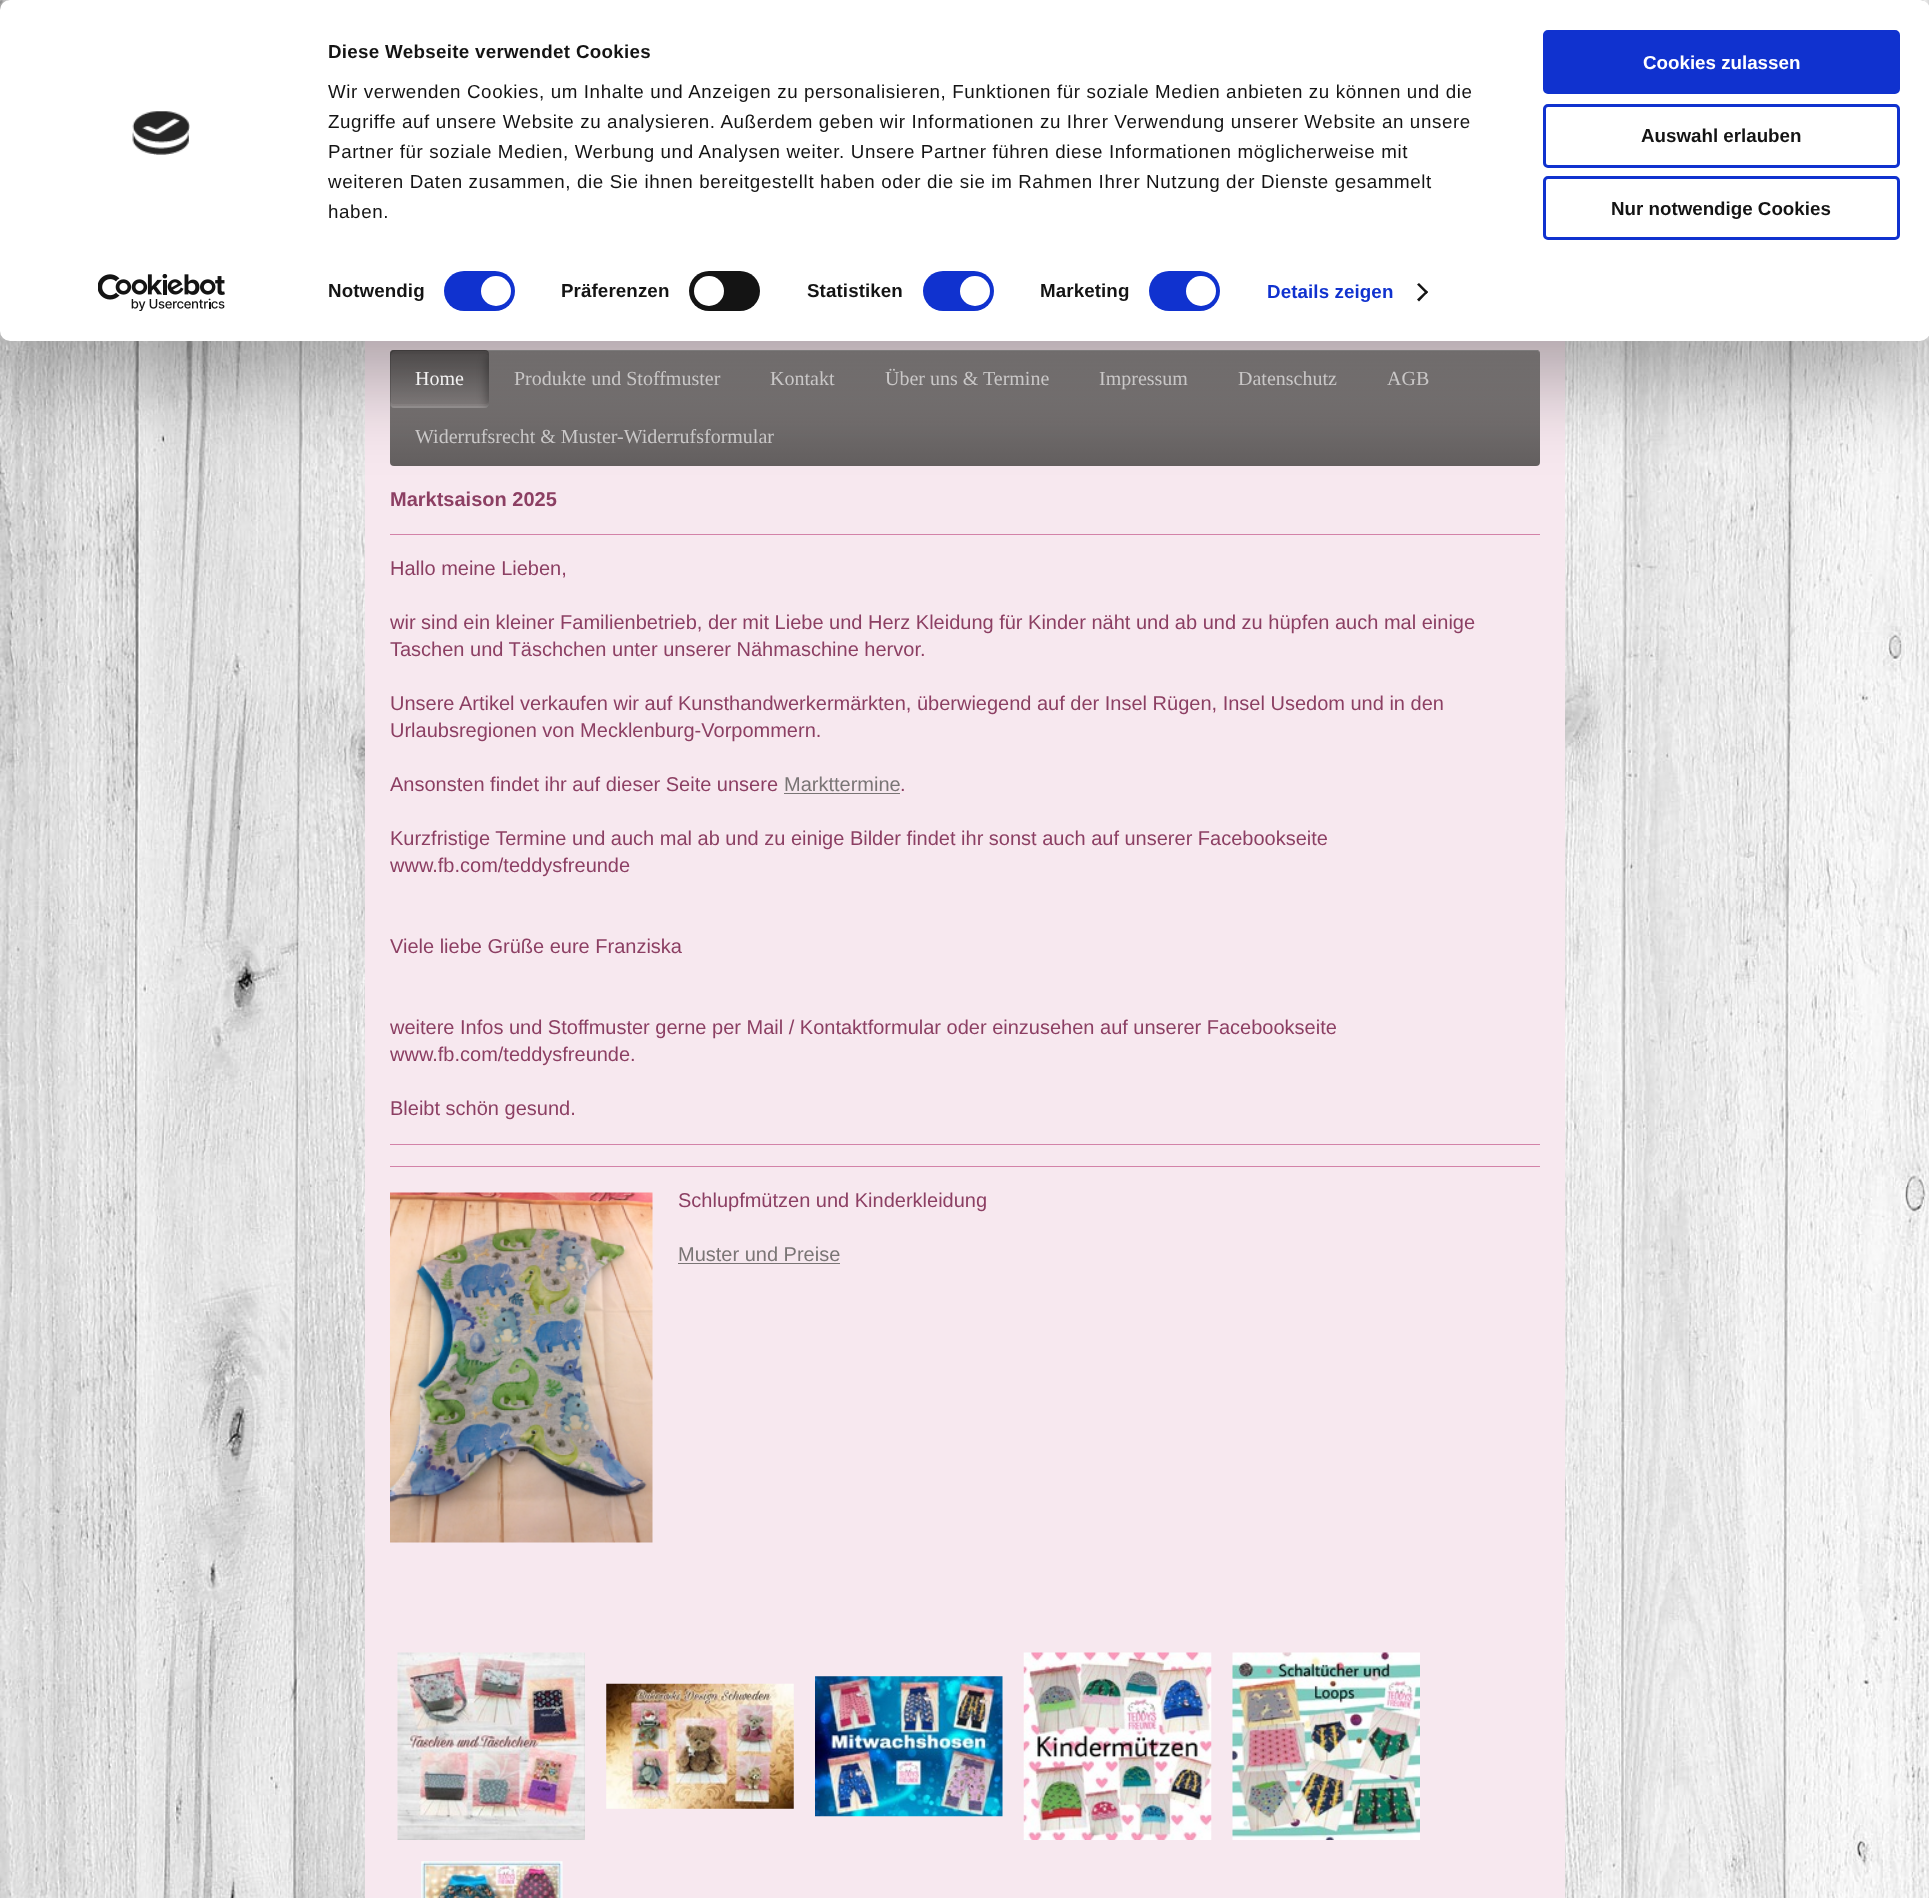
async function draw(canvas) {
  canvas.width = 1929;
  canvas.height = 1898;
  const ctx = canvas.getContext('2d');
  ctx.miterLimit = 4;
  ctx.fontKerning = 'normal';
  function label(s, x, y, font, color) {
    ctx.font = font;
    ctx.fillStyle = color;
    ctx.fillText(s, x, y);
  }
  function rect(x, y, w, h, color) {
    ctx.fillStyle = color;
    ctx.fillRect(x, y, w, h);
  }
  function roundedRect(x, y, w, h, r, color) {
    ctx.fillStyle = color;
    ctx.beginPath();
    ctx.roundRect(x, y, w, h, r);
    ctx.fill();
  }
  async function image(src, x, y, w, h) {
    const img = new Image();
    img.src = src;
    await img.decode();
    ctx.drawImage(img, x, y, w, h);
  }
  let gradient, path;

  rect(0, 0, 1929, 1898, '#fff');
  await image('assets/img1.png', 0, 0, 1929, 1898);
  rect(365, 341, 1200, 1557, '#f7e8ef');
  gradient = ctx.createLinearGradient(390, 350, 390, 466);
  gradient.addColorStop(0, '#918c8c');
  gradient.addColorStop(1, '#635f5f');
  ctx.fillStyle = gradient;
  ctx.beginPath();
  ctx.roundRect(390, 350, 1150, 116, 4);
  ctx.fill();
  ctx.fillStyle = '#777373';
  path = new Path2D('M394 351H1536C1538 351 1540 353 1540 355C1540 352 1539 350 1536 350H394C391 350 390 352 390 355C390 353 392 351 394 351Z');
  ctx.fill(path);
  ctx.fillStyle = '#ffffff4d';
  path = new Path2D('M394 351H1536C1538 351 1540 353 1540 355C1540 352 1539 350 1536 350H394C391 350 390 352 390 355C390 353 392 351 394 351Z');
  ctx.fill(path);
  gradient = ctx.createLinearGradient(390, 408, 390, 350);
  gradient.addColorStop(0, '#898484');
  gradient.addColorStop(1, '#635f5f');
  ctx.fillStyle = gradient;
  ctx.beginPath();
  ctx.roundRect(390, 350, 99, 58, 4);
  ctx.fill();
  ctx.fillStyle = '#00000026';
  path = new Path2D('M395 351H486L488 352C488 351 486 350 485 350H394C392 350 390 352 390 354V404C390 405 391 407 392 407L391 405V355C391 353 393 351 395 351Z');
  ctx.fill(path);
  ctx.fillStyle = '#0000000a';
  path = new Path2D('M394 354H485C487 354 489 355 489 358V354C489 352 487 350 485 350H394C392 350 390 352 390 354V358C390 355 392 354 394 354Z');
  ctx.fill(path);
  ctx.fillStyle = '#ffffff14';
  path = new Path2D('M390 400V404C390 406 392 408 394 408H485C487 408 489 406 489 404V400C489 402 487 404 485 404H394C392 404 390 402 390 400Z');
  ctx.fill(path);
  ctx.fillStyle = '#ffffff1a';
  path = new Path2D('M390 402V404C390 406 392 408 394 408H485C487 408 489 406 489 404V402C489 405 487 406 485 406H394C392 406 390 405 390 402Z');
  ctx.fill(path);
  ctx.fillStyle = '#0000004d';
  ctx.filter = 'blur(44px)';
  ctx.beginPath();
  ctx.roundRect(0, 38, 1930, 341, 10);
  ctx.fill();
  ctx.filter = 'none';
  ctx.save();
  ctx.beginPath();
  ctx.roundRect(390, 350, 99, 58, 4);
  ctx.clip();
  ctx.filter = 'blur(4.5px)';
  ctx.beginPath();
  ctx.roundRect(486, 353, 20, 57, 10);
  ctx.fill();
  ctx.filter = 'none';
  ctx.restore();
  roundedRect(0, 0, 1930, 341, 10, '#fff');
  await image('assets/img2.png', 132, 111, 58, 44);
  await image('assets/img3.png', 98, 274, 127, 37);
  ctx.letterSpacing = '0.3px';
  label('Diese Webseite verwendet Cookies', 328, 58, 'bold 18.75px Liberation Sans', '#141414');
  ctx.letterSpacing = '0.62px';
  label('Wir verwenden Cookies, um Inhalte und Anzeigen zu personalisieren, Funktionen für soziale Medien anbieten zu können und die', 328, 98, '18.75px Liberation Sans', '#141414');
  label('Zugriffe auf unsere Website zu analysieren. Außerdem geben wir Informationen zu Ihrer Verwendung unserer Website an unsere', 328, 128, '18.75px Liberation Sans', '#141414');
  label('Partner für soziale Medien, Werbung und Analysen weiter. Unsere Partner führen diese Informationen möglicherweise mit', 328, 158, '18.75px Liberation Sans', '#141414');
  label('weiteren Daten zusammen, die Sie ihnen bereitgestellt haben oder die sie im Rahmen Ihrer Nutzung der Dienste gesammelt', 328, 188, '18.75px Liberation Sans', '#141414');
  label('haben.', 328, 218, '18.75px Liberation Sans', '#141414');
  ctx.letterSpacing = '0.1px';
  label('Notwendig', 328, 297, 'bold 18.75px Liberation Sans', '#141414');
  roundedRect(444, 271, 71, 40, 20, '#1032cf');
  ctx.fillStyle = '#fff';
  ctx.beginPath();
  ctx.arc(496, 291, 15, 0, 2 * Math.PI);
  ctx.fill();
  label('Präferenzen', 561, 297, 'bold 18.75px Liberation Sans', '#141414');
  roundedRect(689, 271, 71, 40, 20, '#141414');
  ctx.fillStyle = '#fff';
  ctx.beginPath();
  ctx.arc(709, 291, 15, 0, 2 * Math.PI);
  ctx.fill();
  label('Statistiken', 807, 297, 'bold 18.75px Liberation Sans', '#141414');
  roundedRect(923, 271, 71, 40, 20, '#1032cf');
  ctx.fillStyle = '#fff';
  ctx.beginPath();
  ctx.arc(975, 291, 15, 0, 2 * Math.PI);
  ctx.fill();
  label('Marketing', 1040, 297, 'bold 18.75px Liberation Sans', '#141414');
  roundedRect(1149, 271, 71, 40, 20, '#1032cf');
  ctx.fillStyle = '#fff';
  ctx.beginPath();
  ctx.arc(1201, 291, 15, 0, 2 * Math.PI);
  ctx.fill();
  label('Details zeigen', 1267, 298, 'bold 18.75px Liberation Sans', '#1032cf');
  ctx.fillStyle = '#141414';
  path = new Path2D('M1419 283L1428 292L1426.5 294L1417 284.5Z');
  ctx.fill(path);
  path = new Path2D('M1426.5 290.5L1428 292L1419 301.5L1417 299.5Z');
  ctx.fill(path);
  ctx.fillStyle = '#1032cf';
  ctx.beginPath();
  ctx.roundRect(1544.5, 31.5, 354, 61, 3.5);
  ctx.fill();
  ctx.strokeStyle = '#1032cf';
  ctx.lineWidth = 3;
  ctx.stroke();
  ctx.letterSpacing = '0px';
  label('Cookies zulassen', 1643, 69, 'bold 18.75px Liberation Sans', '#fff');
  ctx.beginPath();
  ctx.roundRect(1544.5, 105.5, 354, 61, 3.5);
  ctx.stroke();
  label('Auswahl erlauben', 1641, 142, 'bold 18.75px Liberation Sans', '#141414');
  ctx.beginPath();
  ctx.roundRect(1544.5, 177.5, 354, 61, 3.5);
  ctx.stroke();
  label('Nur notwendige Cookies', 1611, 215, 'bold 18.75px Liberation Sans', '#141414');
  label('Home', 415, 385, '20px Liberation Serif', '#f2f1f1');
  label('Produkte und Stoffmuster', 514, 385, '20px Liberation Serif', '#c9c7c7');
  label('Kontakt', 770, 385, '20px Liberation Serif', '#c9c7c7');
  label('Über uns & Termine', 885, 385, '20px Liberation Serif', '#c9c7c7');
  label('Impressum', 1099, 385, '20px Liberation Serif', '#c9c7c7');
  label('Datenschutz', 1238, 385, '20px Liberation Serif', '#c9c7c7');
  label('AGB', 1387, 385, '20px Liberation Serif', '#c9c7c7');
  label('Widerrufsrecht & Muster-Widerrufsformular', 415, 443, '20px Liberation Serif', '#c9c7c7');
  label('Marktsaison 2025', 390, 506, 'bold 20px Liberation Sans', '#8c3f63');
  rect(390, 534, 1150, 1, '#d382a8');
  label('Hallo meine Lieben,', 390, 575, '20px Liberation Sans', '#8c3f63');
  label('wir sind ein kleiner Familienbetrieb, der mit Liebe und Herz Kleidung für Kinder näht und ab und zu hüpfen auch mal einige', 390, 629, '20px Liberation Sans', '#8c3f63');
  label('Taschen und Täschchen unter unserer Nähmaschine hervor.', 390, 656, '20px Liberation Sans', '#8c3f63');
  label('Unsere Artikel verkaufen wir auf Kunsthandwerkermärkten, überwiegend auf der Insel Rügen, Insel Usedom und in den', 390, 710, '20px Liberation Sans', '#8c3f63');
  label('Urlaubsregionen von Mecklenburg-Vorpommern.', 390, 737, '20px Liberation Sans', '#8c3f63');
  label('Ansonsten findet ihr auf dieser Seite unsere', 390, 791, '20px Liberation Sans', '#8c3f63');
  label('Markttermine', 784, 791, '20px Liberation Sans', '#7a7575');
  rect(784, 793, 116, 1, '#7a7575');
  label('.', 900, 791, '20px Liberation Sans', '#8c3f63');
  label('Kurzfristige Termine und auch mal ab und zu einige Bilder findet ihr sonst auch auf unserer Facebookseite', 390, 845, '20px Liberation Sans', '#8c3f63');
  label('www.fb.com/teddysfreunde', 390, 872, '20px Liberation Sans', '#8c3f63');
  label('Viele liebe Grüße eure Franziska', 390, 953, '20px Liberation Sans', '#8c3f63');
  label('weitere Infos und Stoffmuster gerne per Mail / Kontaktformular oder einzusehen auf unserer Facebookseite', 390, 1034, '20px Liberation Sans', '#8c3f63');
  label('www.fb.com/teddysfreunde.', 390, 1061, '20px Liberation Sans', '#8c3f63');
  label('Bleibt schön gesund.', 390, 1115, '20px Liberation Sans', '#8c3f63');
  rect(390, 1144, 1150, 1, '#d382a8');
  rect(390, 1166, 1150, 1, '#d382a8');
  await image('assets/img4.png', 390, 1192, 263, 351);
  label('Schlupfmützen und Kinderkleidung', 678, 1207, '20px Liberation Sans', '#8c3f63');
  label('Muster und Preise', 678, 1261, '20px Liberation Sans', '#7a7575');
  rect(678, 1263, 162, 1, '#7a7575');
  await image('assets/img5.png', 397, 1652, 188, 188);
  await image('assets/img6.png', 606, 1683, 188, 126);
  await image('assets/img7.png', 815, 1676, 188, 141);
  await image('assets/img8.png', 1023, 1652, 189, 188);
  await image('assets/img9.png', 1232, 1652, 188, 188);
  await image('assets/img10.png', 421, 1861, 142, 37);
}

draw(document.querySelector('canvas'));
